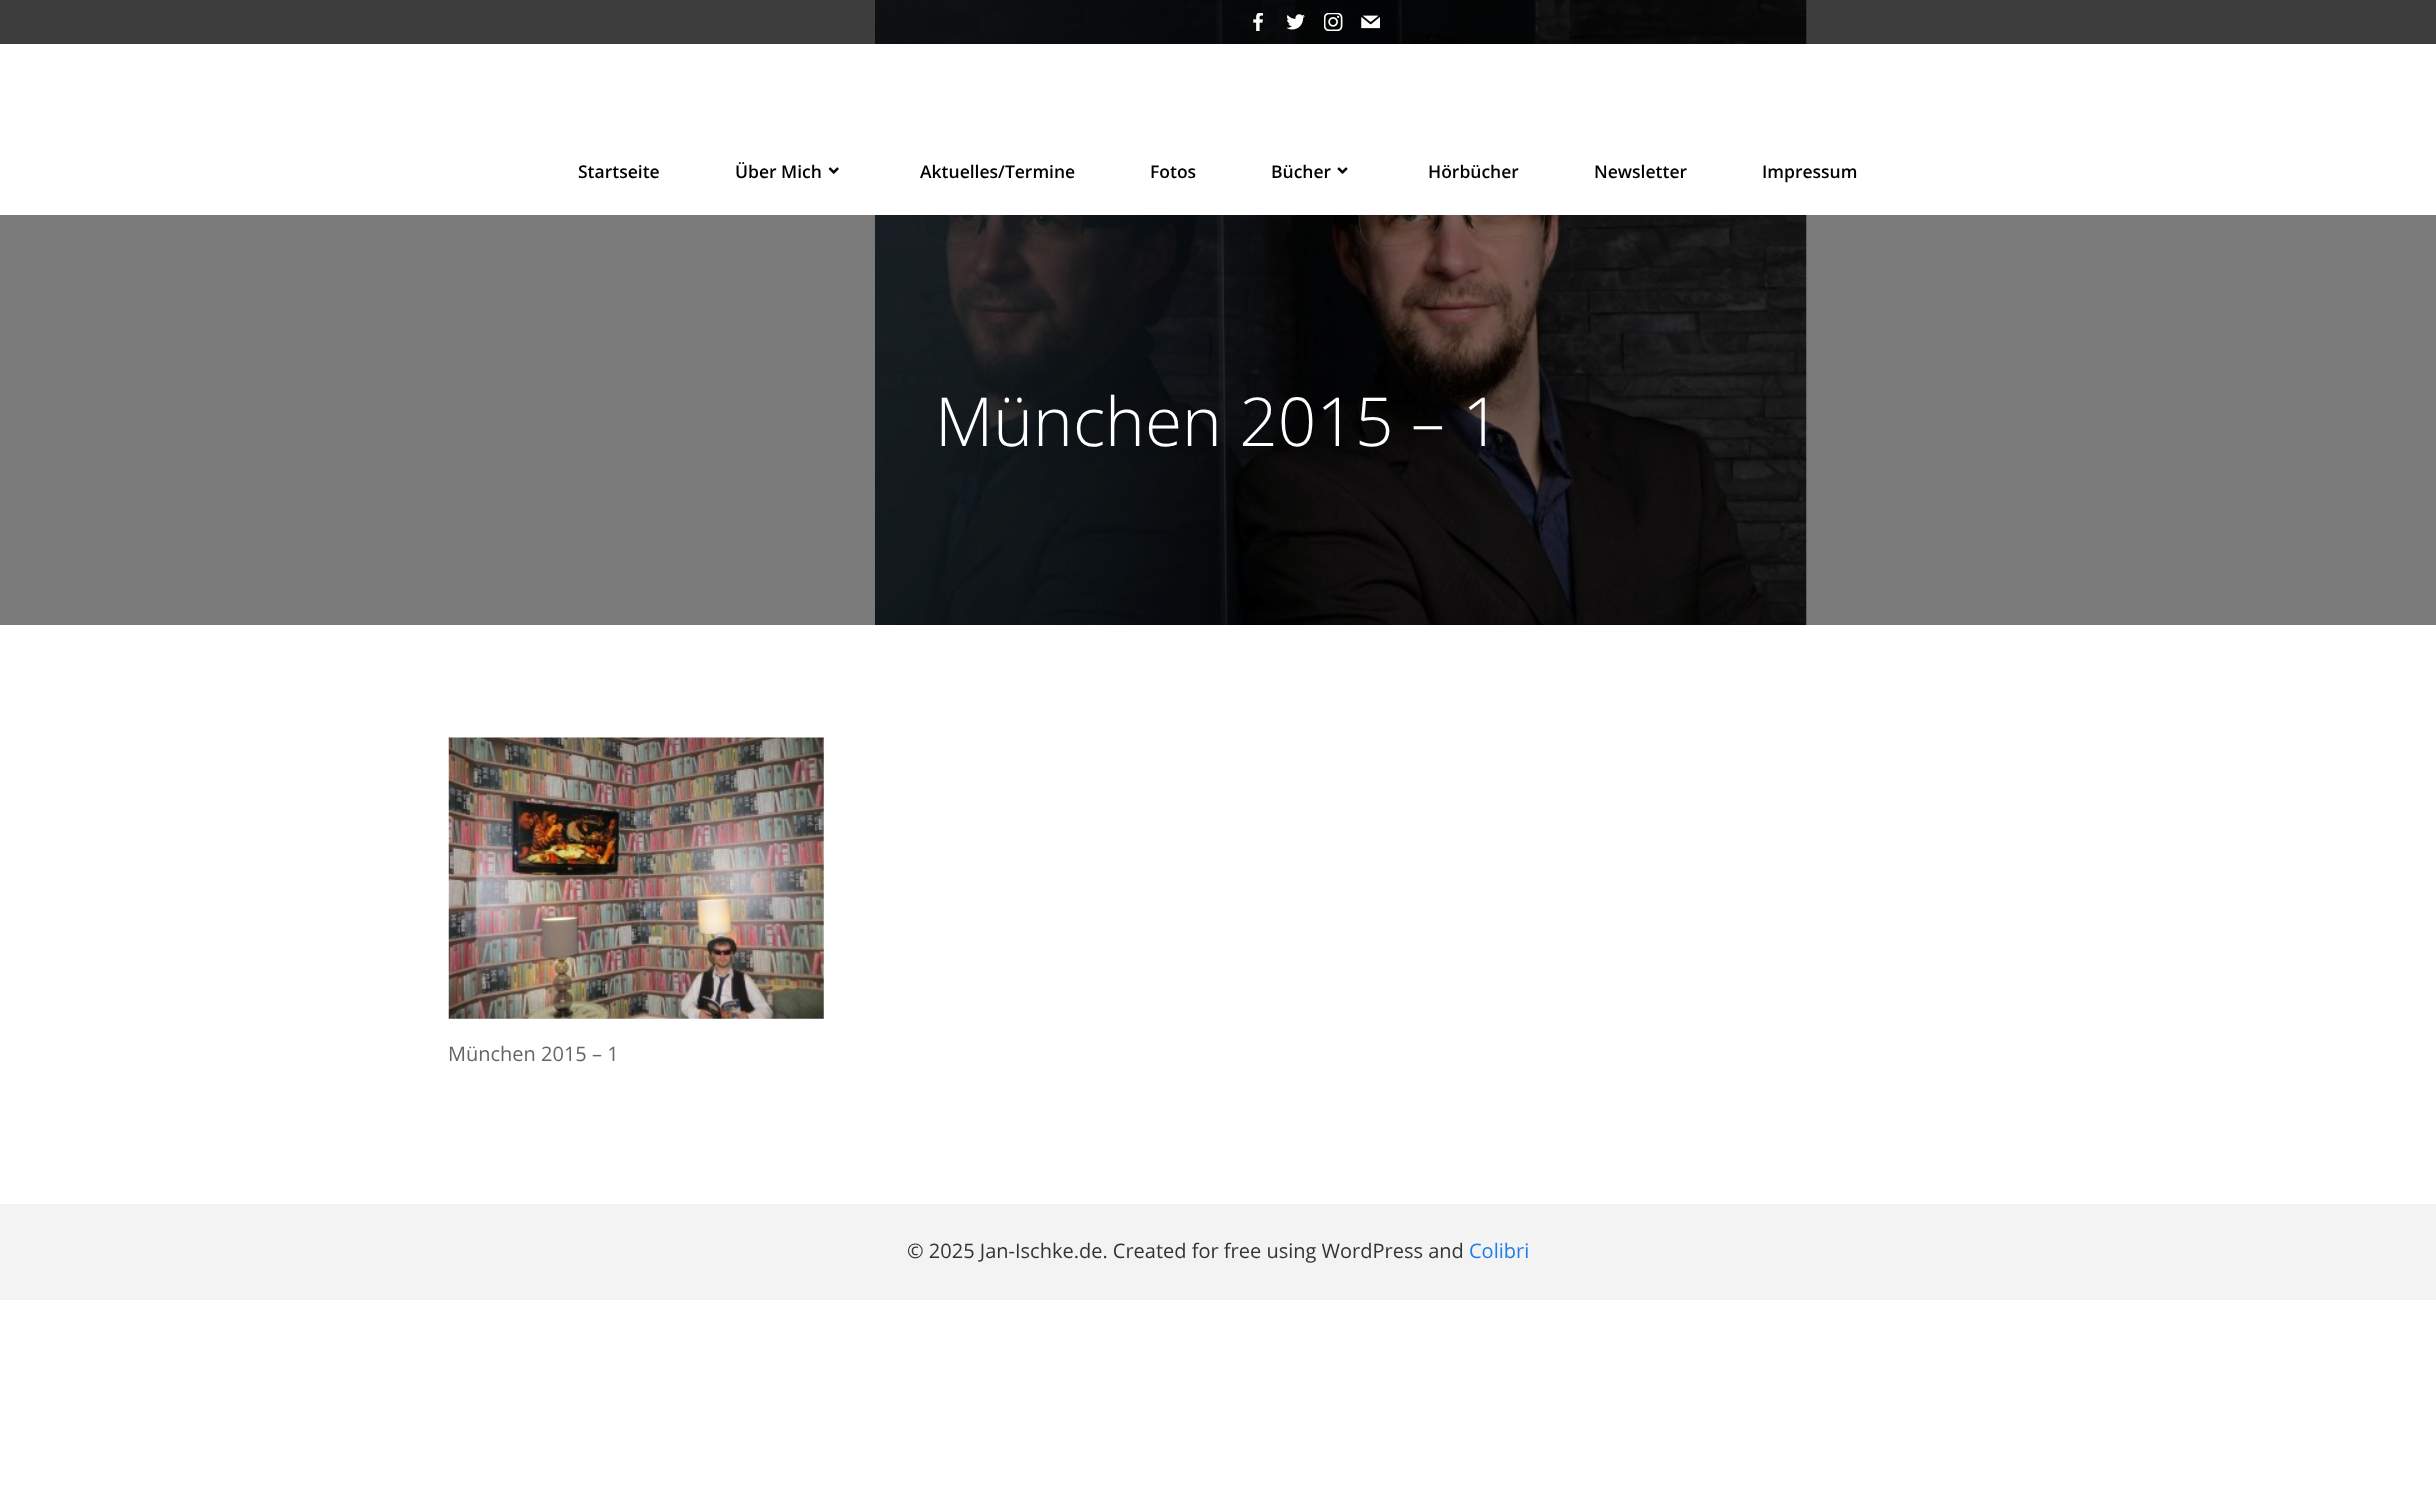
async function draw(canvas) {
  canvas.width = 2436;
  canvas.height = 1495;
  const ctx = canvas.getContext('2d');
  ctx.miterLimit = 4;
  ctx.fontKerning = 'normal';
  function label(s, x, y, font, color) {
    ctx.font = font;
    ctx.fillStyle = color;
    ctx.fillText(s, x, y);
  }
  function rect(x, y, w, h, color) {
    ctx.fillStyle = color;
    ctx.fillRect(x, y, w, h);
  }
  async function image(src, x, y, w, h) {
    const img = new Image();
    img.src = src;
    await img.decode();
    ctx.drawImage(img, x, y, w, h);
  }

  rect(0, 0, 2436, 1495, '#fff');
  rect(0, 0, 2436, 625, '#7a7a7a');
  await image('assets/img7.png', 875, 0, 932, 625);
  rect(0, 0, 2436, 44, '#00000080');
  await image('assets/img1.png', 1253, 13, 10, 18);
  await image('assets/img2.png', 1286, 14, 19, 16);
  await image('assets/img3.png', 1324, 13, 19, 18);
  await image('assets/img4.png', 1361, 15, 19, 14);
  rect(0, 44, 2436, 171, '#fff');
  label('Startseite', 578, 178, '600 17.5px Open Sans', '#000');
  label('Über Mich', 735, 178, '600 17.5px Open Sans', '#000');
  await image('assets/img5.png', 828, 167, 11, 7);
  label('Aktuelles/Termine', 920, 178, '600 17.5px Open Sans', '#000');
  label('Fotos', 1150, 178, '600 17.5px Open Sans', '#000');
  label('Bücher', 1271, 178, '600 17.5px Open Sans', '#000');
  await image('assets/img6.png', 1337, 167, 11, 7);
  label('Hörbücher', 1428, 178, '600 17.5px Open Sans', '#000');
  label('Newsletter', 1594, 178, '600 17.5px Open Sans', '#000');
  label('Impressum', 1762, 178, '600 17.5px Open Sans', '#000');
  label('München 2015 – 1', 935, 446, '300 67.5px Open Sans', '#fff');
  await image('assets/img8.png', 448, 737, 376, 282);
  label('München 2015 – 1', 448, 1061, '20px Open Sans', '#666');
  rect(0, 1204, 2436, 96, '#f3f3f3');
  label('© 2025 Jan-Ischke.de. Created for free using WordPress and', 907, 1258, '20px Open Sans', '#333');
  label('Colibri', 1469, 1258, '20px Open Sans', '#1f7ee7');
}

draw(document.querySelector('canvas'));
